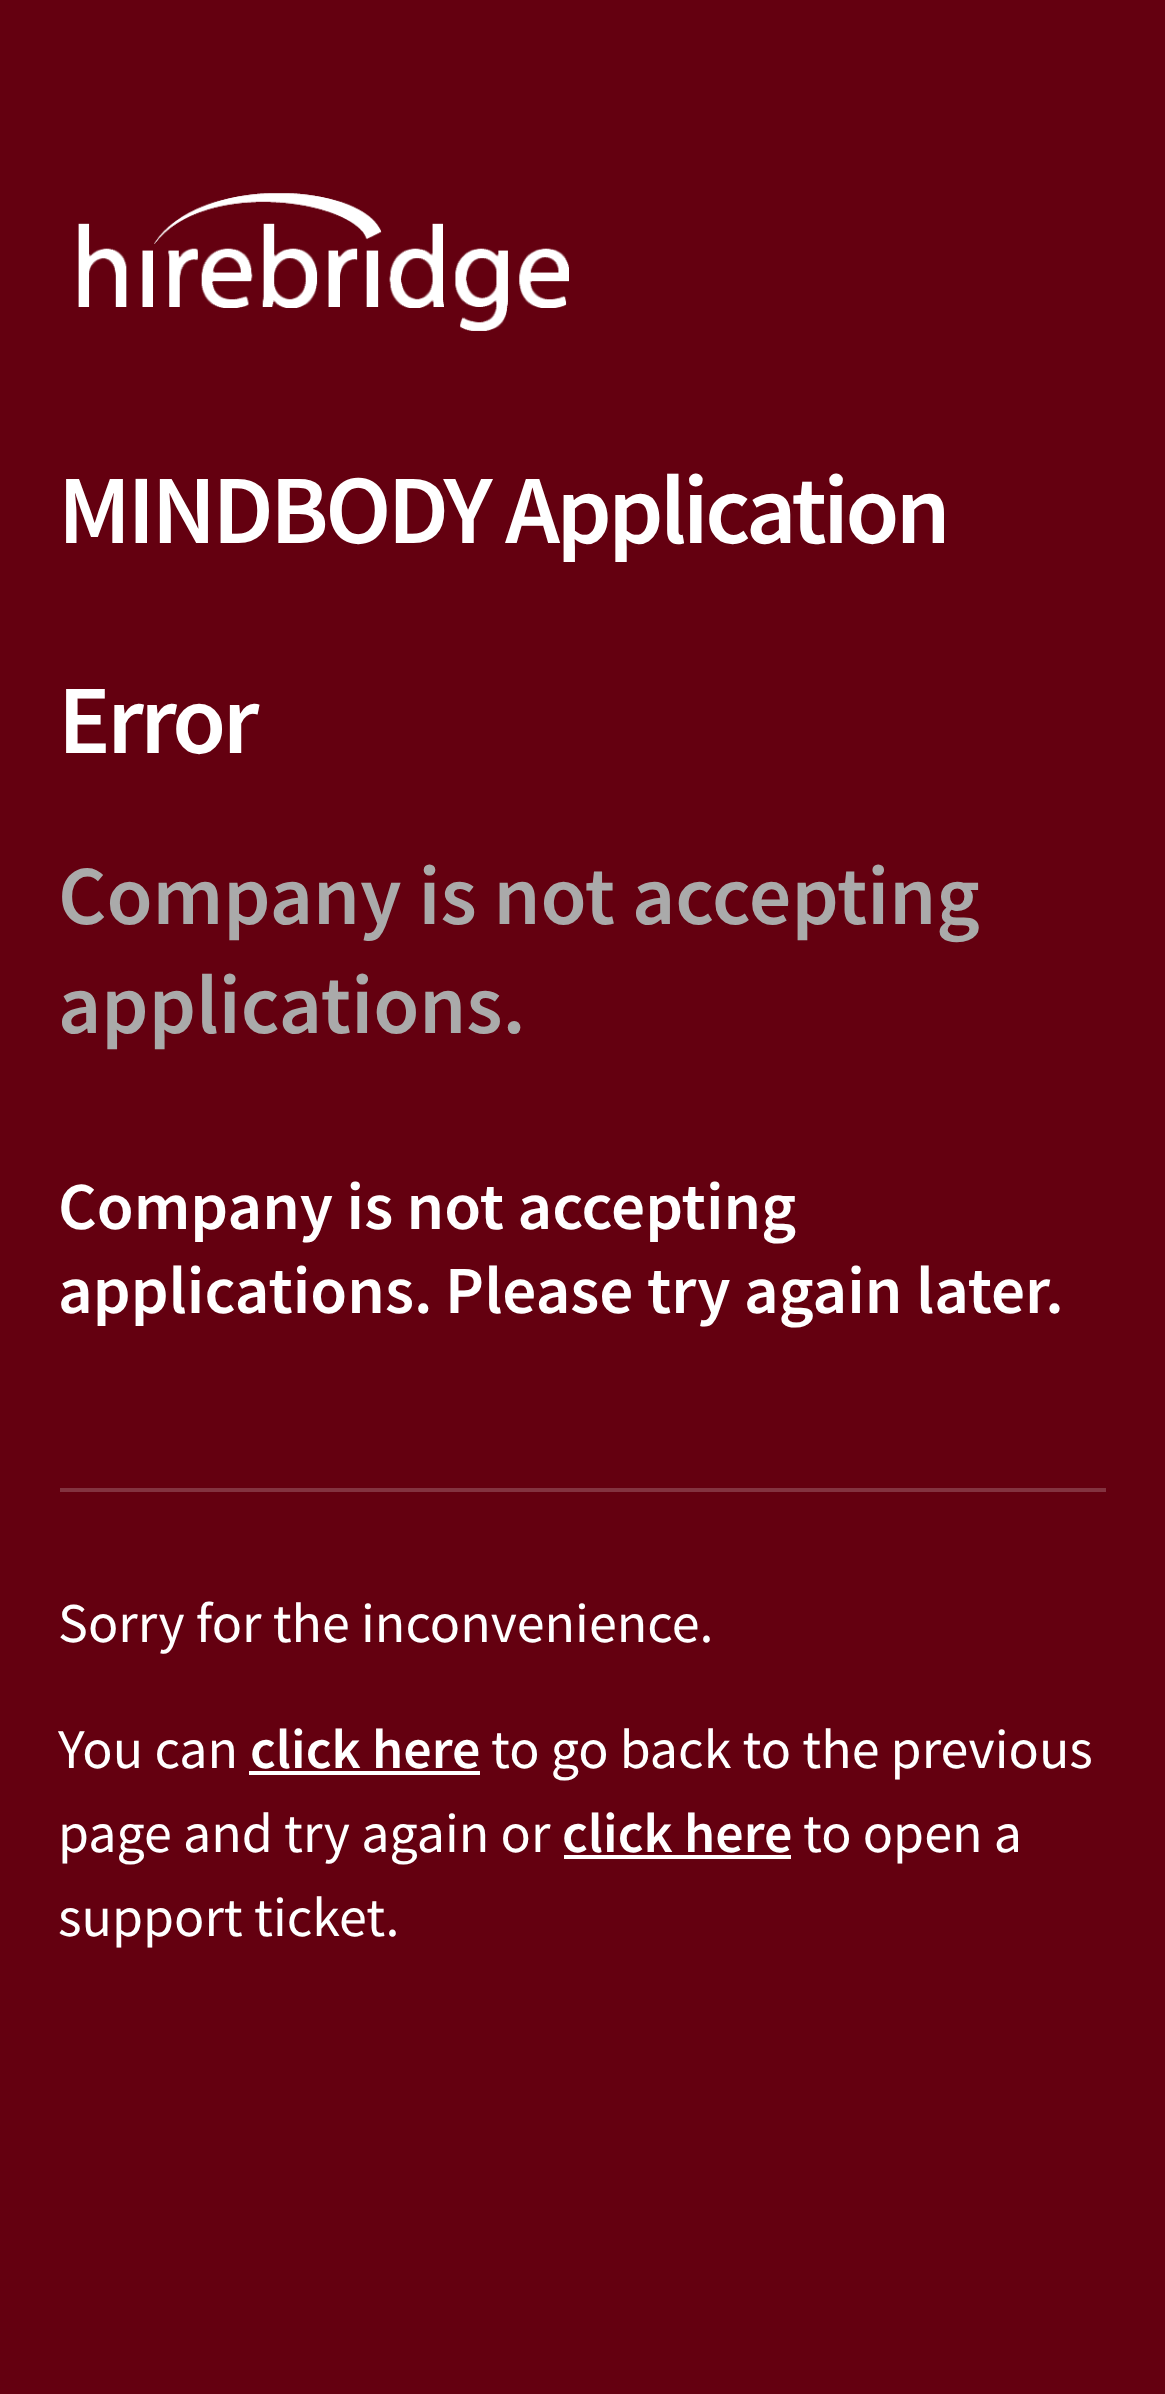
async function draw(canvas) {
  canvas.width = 1165;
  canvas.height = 2394;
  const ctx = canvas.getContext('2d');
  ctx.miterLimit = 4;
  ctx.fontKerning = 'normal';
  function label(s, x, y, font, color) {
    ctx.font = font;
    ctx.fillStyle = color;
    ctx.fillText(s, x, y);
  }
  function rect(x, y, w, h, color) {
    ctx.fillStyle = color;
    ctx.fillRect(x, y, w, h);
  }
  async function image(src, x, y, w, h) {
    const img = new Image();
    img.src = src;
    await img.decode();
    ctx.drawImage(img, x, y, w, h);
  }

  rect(0, 0, 1165, 2394, '#640010');
  await image('assets/img1.png', 78, 193, 491, 138);
  ctx.letterSpacing = '-3.5px';
  label('MINDBODY Application', 58, 543, '600 98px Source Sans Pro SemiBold', '#fff');
  label('Error', 58, 753, '600 98px Source Sans Pro SemiBold', '#fff');
  ctx.letterSpacing = '0px';
  label('Company is not accepting', 58, 924, '600 84px Source Sans Pro SemiBold', '#aaa');
  label('applications.', 58, 1033, '600 84px Source Sans Pro SemiBold', '#aaa');
  label('Company is not accepting', 58, 1229, '600 67.25px Source Sans Pro SemiBold', '#fff');
  label('applications.', 58, 1313, '600 67.25px Source Sans Pro SemiBold', '#fff');
  label('Please try again later.', 445, 1313, '600 67.25px Source Sans Pro SemiBold', '#fff');
  rect(60, 1488, 1046, 4, '#833340');
  label('Sorry for the inconvenience.', 58, 1642, '56px Source Sans Pro', '#fff');
  label('You can', 58, 1768, '56px Source Sans Pro', '#fff');
  label('click here', 250, 1768, '600 56px Source Sans Pro SemiBold', '#fff');
  rect(249, 1771, 231, 4, '#fff');
  label('to go back to the previous', 491, 1768, '56px Source Sans Pro', '#fff');
  label('page and try again or', 58, 1852, '56px Source Sans Pro', '#fff');
  label('click here', 562, 1852, '600 56px Source Sans Pro SemiBold', '#fff');
  rect(564, 1855, 227, 4, '#fff');
  label('to open a', 803, 1852, '56px Source Sans Pro', '#fff');
  label('support ticket.', 58, 1936, '56px Source Sans Pro', '#fff');
}

draw(document.querySelector('canvas'));
